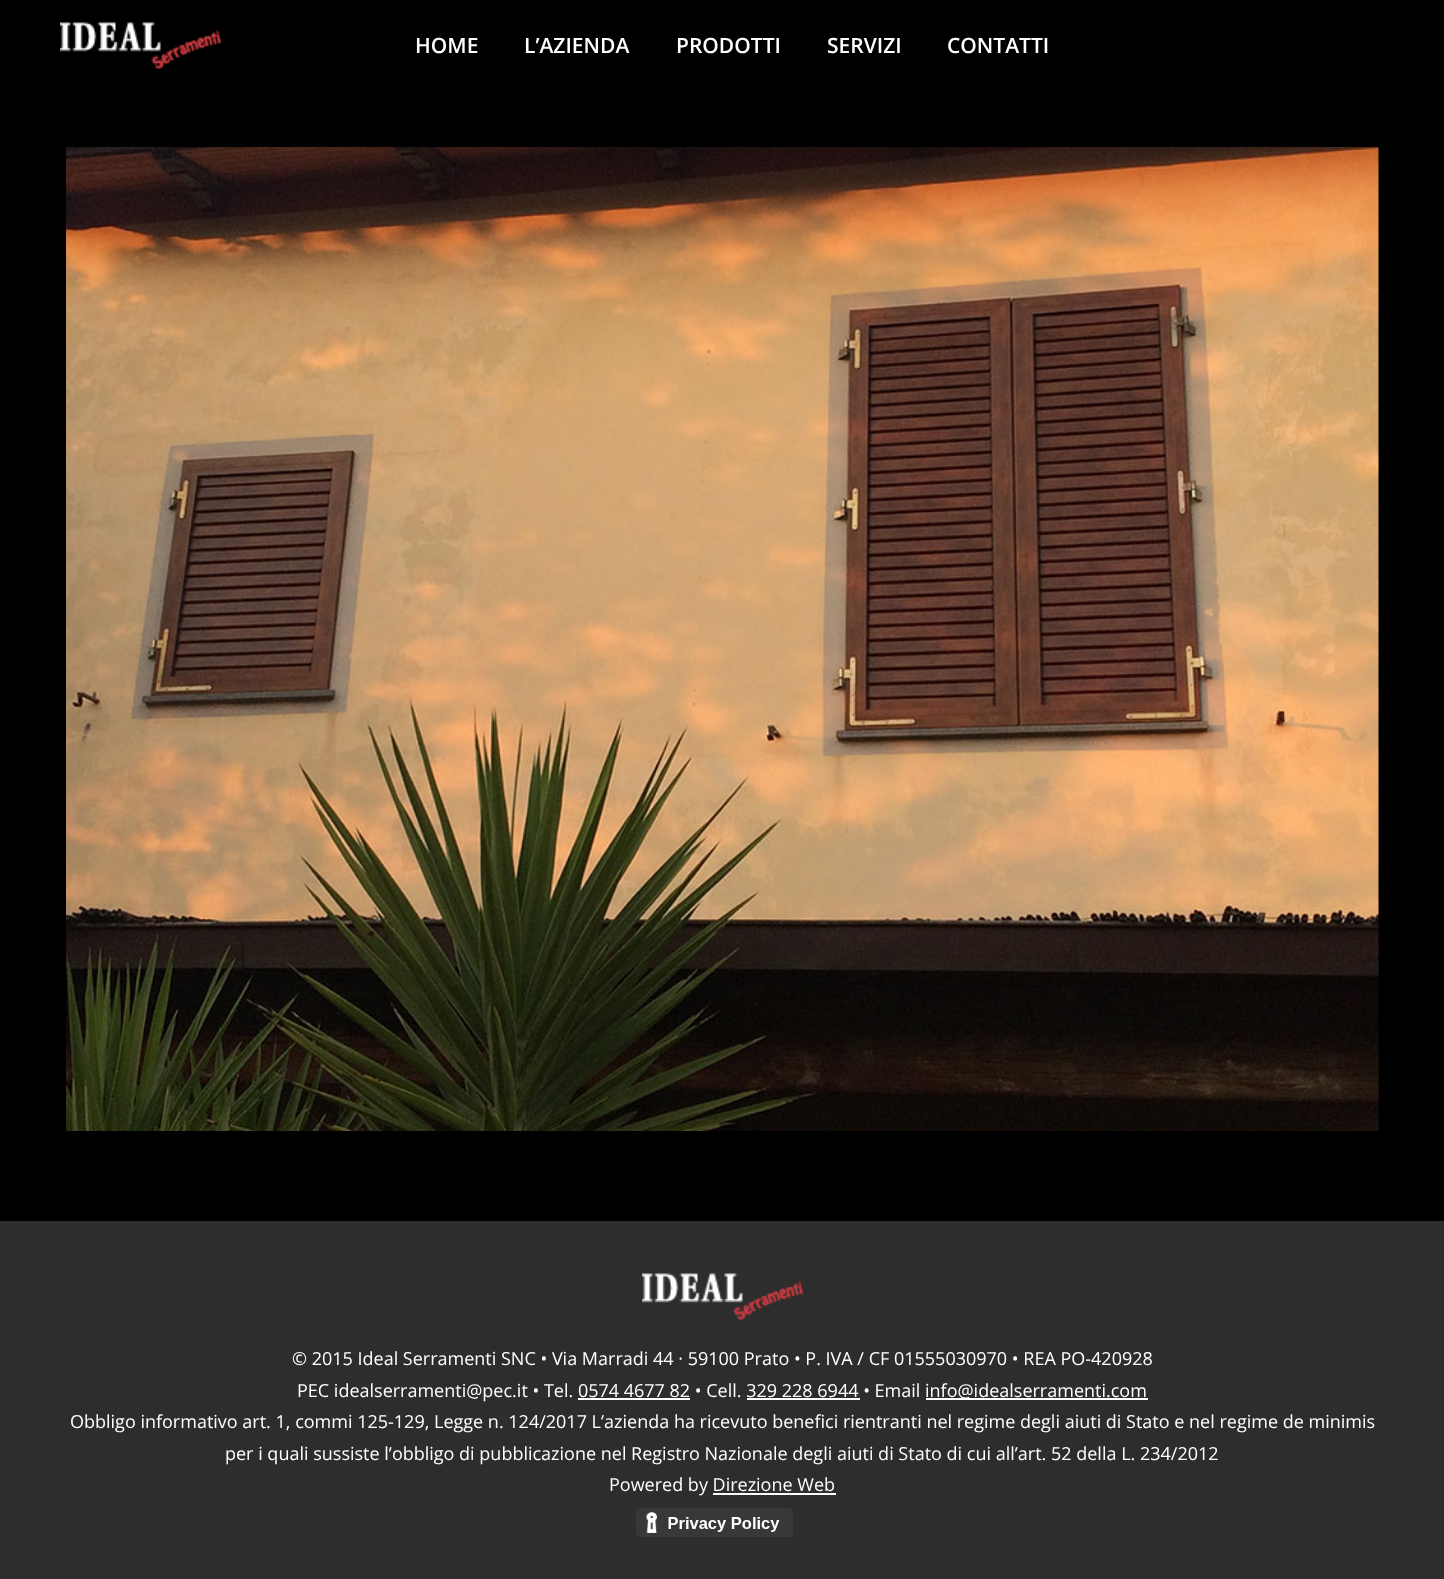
async function draw(canvas) {
  canvas.width = 1444;
  canvas.height = 1579;
  const ctx = canvas.getContext('2d');
  ctx.miterLimit = 4;
  ctx.fontKerning = 'normal';
  function label(s, x, y, font, color) {
    ctx.font = font;
    ctx.fillStyle = color;
    ctx.fillText(s, x, y);
  }
  function rect(x, y, w, h, color) {
    ctx.fillStyle = color;
    ctx.fillRect(x, y, w, h);
  }
  async function image(src, x, y, w, h) {
    const img = new Image();
    img.src = src;
    await img.decode();
    ctx.drawImage(img, x, y, w, h);
  }

  rect(0, 0, 1444, 1579, '#000');
  await image('assets/img1.png', 60, 22, 162, 47);
  label('HOME', 415, 53, '600 21px Open Sans', '#fff');
  label('L’AZIENDA', 524, 53, '600 21px Open Sans', '#fff');
  label('PRODOTTI', 676, 53, '600 21px Open Sans', '#fff');
  label('SERVIZI', 827, 53, '600 21px Open Sans', '#fff');
  label('CONTATTI', 947, 53, '600 21px Open Sans', '#fff');
  await image('assets/img2.png', 66, 147, 1313, 984);
  rect(0, 1221, 1444, 358, '#2d2d2d');
  await image('assets/img3.png', 642, 1273, 162, 47);
  label('© 2015 Ideal Serramenti SNC • Via Marradi 44 · 59100 Prato • P. IVA / CF 01555030970 • REA PO-420928', 292, 1365, '18px Open Sans', '#fff');
  label('PEC idealserramenti@pec.it • Tel. 0574 4677 82 • Cell. 329 228 6944 • Email', 297, 1397, '18px Open Sans', '#fff');
  rect(926, 1398, 222, 2, '#fff');
  label('info@idealserramenti.com', 925, 1397, '18px Open Sans', '#fff');
  rect(578, 1398, 112, 2, '#fff');
  rect(747, 1398, 113, 2, '#fff');
  label('Obbligo informativo art. 1, commi 125-129, Legge n. 124/2017 L’azienda ha ricevuto benefici rientranti nel regime degli aiuti di Stato e nel regime de minimis', 70, 1428, '18px Open Sans', '#fff');
  label('per i quali sussiste l’obbligo di pubblicazione nel Registro Nazionale degli aiuti di Stato di cui all’art. 52 della L. 234/2012', 225, 1460, '18px Open Sans', '#fff');
  label('Powered by Direzione Web', 609, 1491, '18px Open Sans', '#fff');
  rect(713, 1493, 123, 2, '#fff');
  await image('assets/img4.png', 636, 1508, 157, 29);
}

draw(document.querySelector('canvas'));
